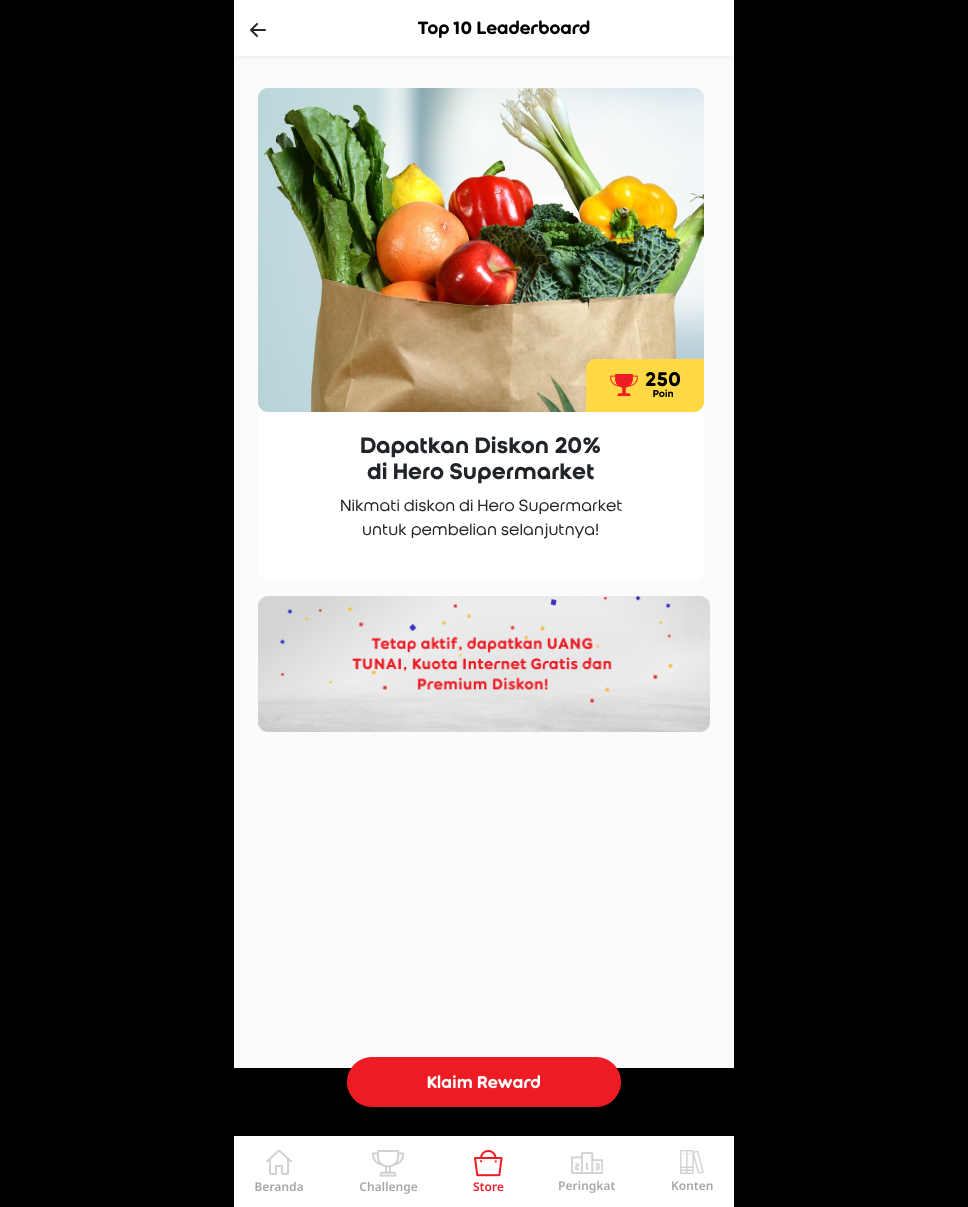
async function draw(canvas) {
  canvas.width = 968;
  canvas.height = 1207;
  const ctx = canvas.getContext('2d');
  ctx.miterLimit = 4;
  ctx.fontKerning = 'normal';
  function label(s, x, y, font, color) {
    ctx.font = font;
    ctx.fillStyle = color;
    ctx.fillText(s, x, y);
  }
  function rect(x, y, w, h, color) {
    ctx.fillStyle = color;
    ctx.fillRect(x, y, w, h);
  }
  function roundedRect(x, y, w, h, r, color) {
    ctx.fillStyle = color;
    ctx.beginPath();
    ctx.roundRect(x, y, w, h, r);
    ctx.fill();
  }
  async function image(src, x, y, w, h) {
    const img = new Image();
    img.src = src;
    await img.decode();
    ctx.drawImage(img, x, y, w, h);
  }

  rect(0, 0, 968, 1207, '#000');
  rect(234, 56, 500, 1012, '#fafbfd');
  ctx.fillStyle = '#00000012';
  ctx.filter = 'blur(2px)';
  ctx.beginPath();
  ctx.rect(234, 1, 500, 56);
  ctx.fill();
  ctx.filter = 'none';
  rect(234, 0, 500, 56, '#fff');
  await image('assets/img1.png', 250, 23, 16, 14);
  await image('assets/img2.png', 417, 20, 173, 19);
  roundedRect(258, 88, 446, 493, 12, '#fff');
  await image('assets/img3.png', 258, 88, 446, 324);
  label('Dapatkan Diskon 20%', 360, 453, 'bold 22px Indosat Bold', '#212529');
  label('di Hero Supermarket', 367, 479, 'bold 22px Indosat Bold', '#212529');
  label('Nikmati diskon di Hero Supermarket', 340, 511, '16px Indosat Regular', '#212529');
  label('untuk pembelian selanjutnya!', 362, 535, '16px Indosat Regular', '#212529');
  await image('assets/img4.png', 258, 596, 452, 136);
  await image('assets/img5.png', 347, 1057, 274, 50);
  rect(234, 1136, 500, 71, '#fff');
  await image('assets/img6.png', 255, 1149, 48, 43);
  await image('assets/img7.png', 360, 1150, 58, 44);
  await image('assets/img8.png', 473, 1150, 31, 42);
  await image('assets/img9.png', 559, 1152, 56, 41);
  await image('assets/img10.png', 672, 1150, 41, 41);
}

draw(document.querySelector('canvas'));
